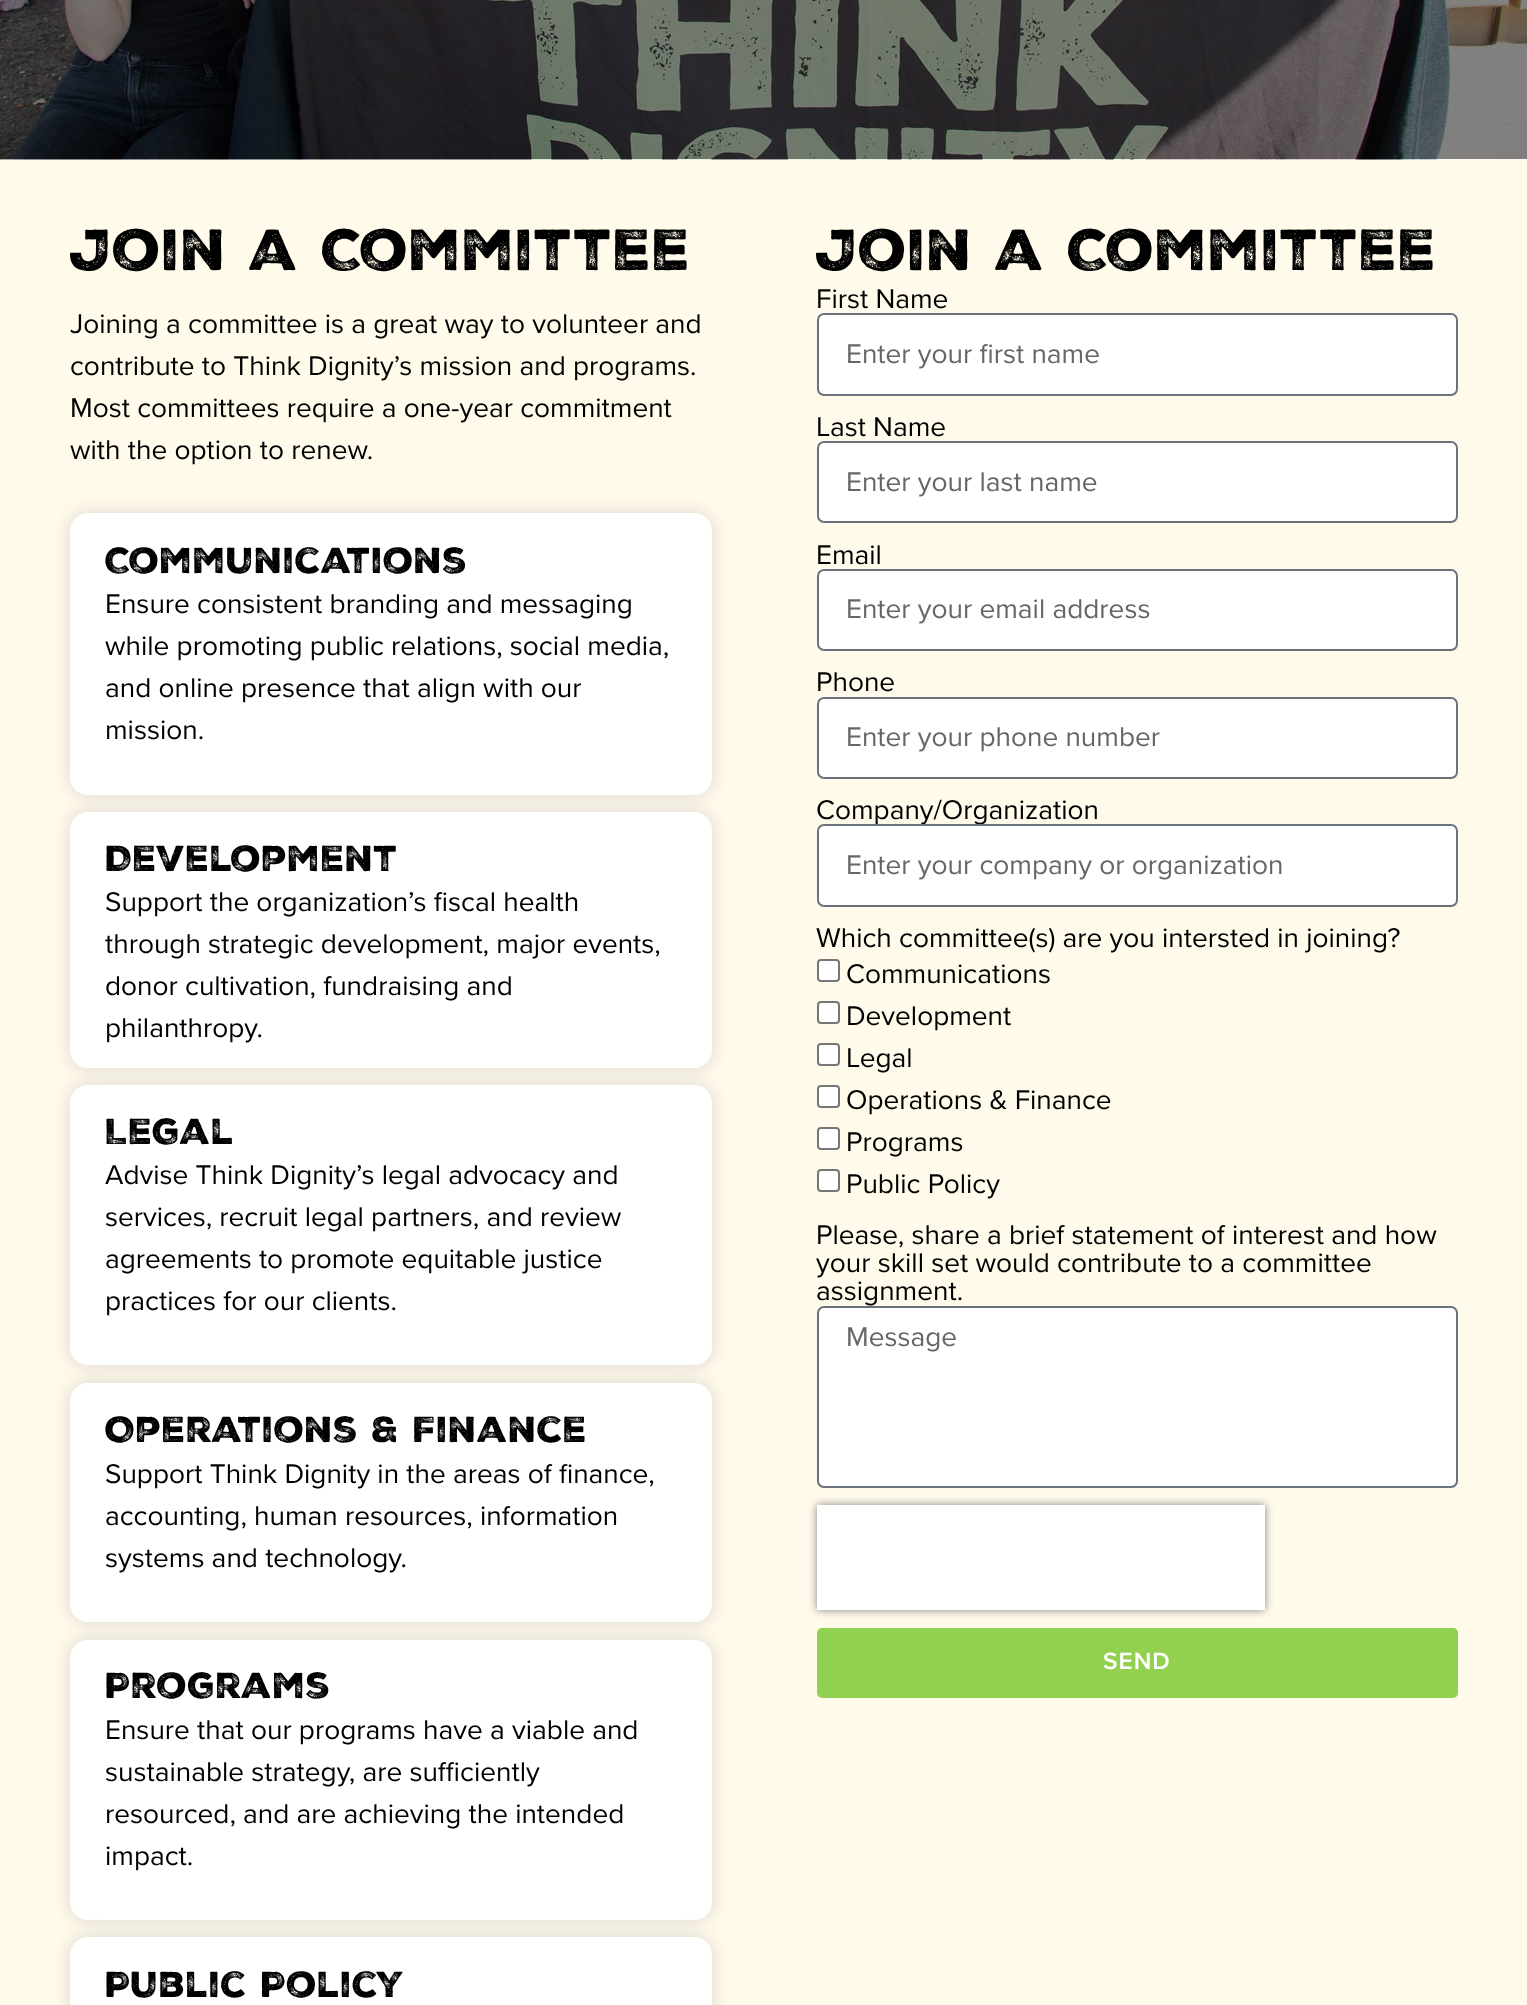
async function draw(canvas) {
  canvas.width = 1527;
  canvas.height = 2005;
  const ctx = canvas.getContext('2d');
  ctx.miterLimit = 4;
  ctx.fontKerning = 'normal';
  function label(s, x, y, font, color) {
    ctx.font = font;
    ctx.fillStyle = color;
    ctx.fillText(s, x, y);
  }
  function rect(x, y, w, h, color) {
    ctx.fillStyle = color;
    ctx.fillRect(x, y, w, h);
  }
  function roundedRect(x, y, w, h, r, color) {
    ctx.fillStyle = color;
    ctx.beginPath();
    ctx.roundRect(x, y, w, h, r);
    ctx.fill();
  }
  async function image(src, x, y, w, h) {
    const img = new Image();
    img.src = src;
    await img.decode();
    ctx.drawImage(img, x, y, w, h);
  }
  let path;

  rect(0, 0, 1527, 2005, '#fffaea');
  await image('assets/img1.png', 0, 0, 1527, 160);
  label('Join a Committee', 70, 270, '900 56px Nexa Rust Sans', '#000');
  label('Joining a committee is a great way to volunteer and', 70, 333, '28px Proxima Nova', '#000');
  label('contribute to Think Dignity’s mission and programs.', 70, 375, '28px Proxima Nova', '#000');
  label('Most committees require a one-year commitment', 70, 417, '28px Proxima Nova', '#000');
  label('with the option to renew.', 70, 459, '28px Proxima Nova', '#000');
  ctx.fillStyle = '#b4b4b480';
  ctx.filter = 'blur(9px)';
  ctx.beginPath();
  ctx.roundRect(70, 513, 642, 282, 18);
  ctx.fill();
  ctx.filter = 'none';
  roundedRect(70, 513, 642, 282, 18, '#fff');
  label('Communications', 105, 573, '900 35px Nexa Rust Sans', '#000');
  label('Ensure consistent branding and messaging', 105, 613, '28px Proxima Nova', '#000');
  label('while promoting public relations, social media,', 105, 655, '28px Proxima Nova', '#000');
  label('and online presence that align with our', 105, 697, '28px Proxima Nova', '#000');
  label('mission.', 105, 739, '28px Proxima Nova', '#000');
  ctx.fillStyle = '#b4b4b480';
  ctx.filter = 'blur(9px)';
  ctx.beginPath();
  ctx.roundRect(70, 812, 642, 256, 18);
  ctx.fill();
  ctx.filter = 'none';
  roundedRect(70, 812, 642, 256, 18, '#fff');
  label('Development', 105, 871, '900 35px Nexa Rust Sans', '#000');
  label('Support the organization’s fiscal health', 105, 911, '28px Proxima Nova', '#000');
  label('through strategic development, major events,', 105, 953, '28px Proxima Nova', '#000');
  label('donor cultivation, fundraising and', 105, 995, '28px Proxima Nova', '#000');
  label('philanthropy.', 105, 1037, '28px Proxima Nova', '#000');
  ctx.fillStyle = '#b4b4b480';
  ctx.filter = 'blur(9px)';
  ctx.beginPath();
  ctx.roundRect(70, 1085, 642, 280, 18);
  ctx.fill();
  ctx.filter = 'none';
  roundedRect(70, 1085, 642, 280, 18, '#fff');
  label('Legal', 105, 1144, '900 35px Nexa Rust Sans', '#000');
  label('Advise Think Dignity’s legal advocacy and', 105, 1184, '28px Proxima Nova', '#000');
  label('services, recruit legal partners, and review', 105, 1226, '28px Proxima Nova', '#000');
  label('agreements to promote equitable justice', 105, 1268, '28px Proxima Nova', '#000');
  label('practices for our clients.', 105, 1310, '28px Proxima Nova', '#000');
  ctx.fillStyle = '#b4b4b480';
  ctx.filter = 'blur(9px)';
  ctx.beginPath();
  ctx.roundRect(70, 1383, 642, 239, 18);
  ctx.fill();
  ctx.filter = 'none';
  roundedRect(70, 1383, 642, 239, 18, '#fff');
  label('Operations & Finance', 105, 1442, '900 35px Nexa Rust Sans', '#000');
  label('Support Think Dignity in the areas of finance,', 105, 1483, '28px Proxima Nova', '#000');
  label('accounting, human resources, information', 105, 1525, '28px Proxima Nova', '#000');
  label('systems and technology.', 105, 1567, '28px Proxima Nova', '#000');
  ctx.fillStyle = '#b4b4b480';
  ctx.filter = 'blur(9px)';
  ctx.beginPath();
  ctx.roundRect(70, 1640, 642, 280, 18);
  ctx.fill();
  ctx.filter = 'none';
  roundedRect(70, 1640, 642, 280, 18, '#fff');
  label('Programs', 105, 1698, '900 35px Nexa Rust Sans', '#000');
  label('Ensure that our programs have a viable and', 105, 1739, '28px Proxima Nova', '#000');
  label('sustainable strategy, are sufficiently', 105, 1781, '28px Proxima Nova', '#000');
  label('resourced, and are achieving the intended', 105, 1823, '28px Proxima Nova', '#000');
  label('impact.', 105, 1865, '28px Proxima Nova', '#000');
  ctx.fillStyle = '#b4b4b480';
  ctx.filter = 'blur(9px)';
  ctx.beginPath();
  ctx.roundRect(70, 1937, 642, 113, 18);
  ctx.fill();
  ctx.filter = 'none';
  roundedRect(70, 1937, 642, 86, 18, '#fff');
  label('Public Policy', 105, 1997, '900 35px Nexa Rust Sans', '#000');
  label('Join a Committee', 816, 270, '900 56px Nexa Rust Sans', '#000');
  label('First Name', 816, 308, '28px Proxima Nova', '#000');
  ctx.fillStyle = '#fff';
  ctx.beginPath();
  ctx.roundRect(818, 314, 639, 81, 6);
  ctx.fill();
  ctx.strokeStyle = '#69727d';
  ctx.lineWidth = 2;
  ctx.stroke();
  label('Enter your first name', 846, 363, '28px Proxima Nova', '#666');
  label('Last Name', 816, 436, '28px Proxima Nova', '#000');
  ctx.fillStyle = '#fff';
  ctx.beginPath();
  ctx.roundRect(818, 442, 639, 80, 6);
  ctx.fill();
  ctx.stroke();
  label('Enter your last name', 846, 491, '28px Proxima Nova', '#666');
  label('Email', 816, 564, '28px Proxima Nova', '#000');
  ctx.fillStyle = '#fff';
  ctx.beginPath();
  ctx.roundRect(818, 570, 639, 80, 6);
  ctx.fill();
  ctx.stroke();
  label('Enter your email address', 846, 618, '28px Proxima Nova', '#666');
  label('Phone', 816, 691, '28px Proxima Nova', '#000');
  ctx.fillStyle = '#fff';
  ctx.beginPath();
  ctx.roundRect(818, 698, 639, 80, 6);
  ctx.fill();
  ctx.stroke();
  label('Enter your phone number', 846, 746, '28px Proxima Nova', '#666');
  label('Company/Organization', 816, 819, '28px Proxima Nova', '#000');
  ctx.fillStyle = '#fff';
  ctx.beginPath();
  ctx.roundRect(818, 825, 639, 81, 6);
  ctx.fill();
  ctx.stroke();
  label('Enter your company or organization', 846, 874, '28px Proxima Nova', '#666');
  label('Which committee(s) are you intersted in joining?', 816, 947, '28px Proxima Nova', '#000');
  ctx.fillStyle = '#fff';
  ctx.beginPath();
  ctx.roundRect(818, 960, 21, 21, 3);
  ctx.fill();
  ctx.strokeStyle = '#767676';
  ctx.stroke();
  label('Communications', 846, 983, '28px Proxima Nova', '#000');
  ctx.fillStyle = '#fff';
  ctx.beginPath();
  ctx.roundRect(818, 1002, 21, 21, 3);
  ctx.fill();
  ctx.stroke();
  label('Development', 846, 1025, '28px Proxima Nova', '#000');
  ctx.fillStyle = '#fff';
  ctx.beginPath();
  ctx.roundRect(818, 1044, 21, 21, 3);
  ctx.fill();
  ctx.stroke();
  label('Legal', 846, 1067, '28px Proxima Nova', '#000');
  ctx.fillStyle = '#fff';
  ctx.beginPath();
  ctx.roundRect(818, 1086, 21, 21, 3);
  ctx.fill();
  ctx.stroke();
  label('Operations & Finance', 846, 1109, '28px Proxima Nova', '#000');
  ctx.fillStyle = '#fff';
  ctx.beginPath();
  ctx.roundRect(818, 1128, 21, 21, 3);
  ctx.fill();
  ctx.stroke();
  label('Programs', 846, 1151, '28px Proxima Nova', '#000');
  ctx.fillStyle = '#fff';
  ctx.beginPath();
  ctx.roundRect(818, 1170, 21, 21, 3);
  ctx.fill();
  ctx.stroke();
  label('Public Policy', 846, 1193, '28px Proxima Nova', '#000');
  label('Please, share a brief statement of interest and how', 816, 1244, '28px Proxima Nova', '#000');
  label('your skill set would contribute to a committee', 816, 1272, '28px Proxima Nova', '#000');
  label('assignment.', 816, 1300, '28px Proxima Nova', '#000');
  ctx.fillStyle = '#fff';
  ctx.beginPath();
  ctx.roundRect(818, 1307, 639, 180, 6);
  ctx.fill();
  ctx.strokeStyle = '#69727d';
  ctx.stroke();
  label('Message', 846, 1346, '28px Proxima Nova', '#666');
  rect(817, 1505, 448, 105, '#fff');
  ctx.save();
  path = new Path2D('M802 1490H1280V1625H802ZM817 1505H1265V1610H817Z');
  ctx.clip(path, 'evenodd');
  ctx.fillStyle = '#808080';
  ctx.filter = 'blur(4.5px)';
  ctx.beginPath();
  ctx.rect(817, 1505, 448, 105);
  ctx.fill();
  ctx.filter = 'none';
  ctx.restore();
  roundedRect(817, 1628, 641, 70, 5, '#92d050');
  ctx.letterSpacing = '1px';
  label('SEND', 1103, 1669, '600 24.5px Proxima Nova', '#fff');
}

draw(document.querySelector('canvas'));
